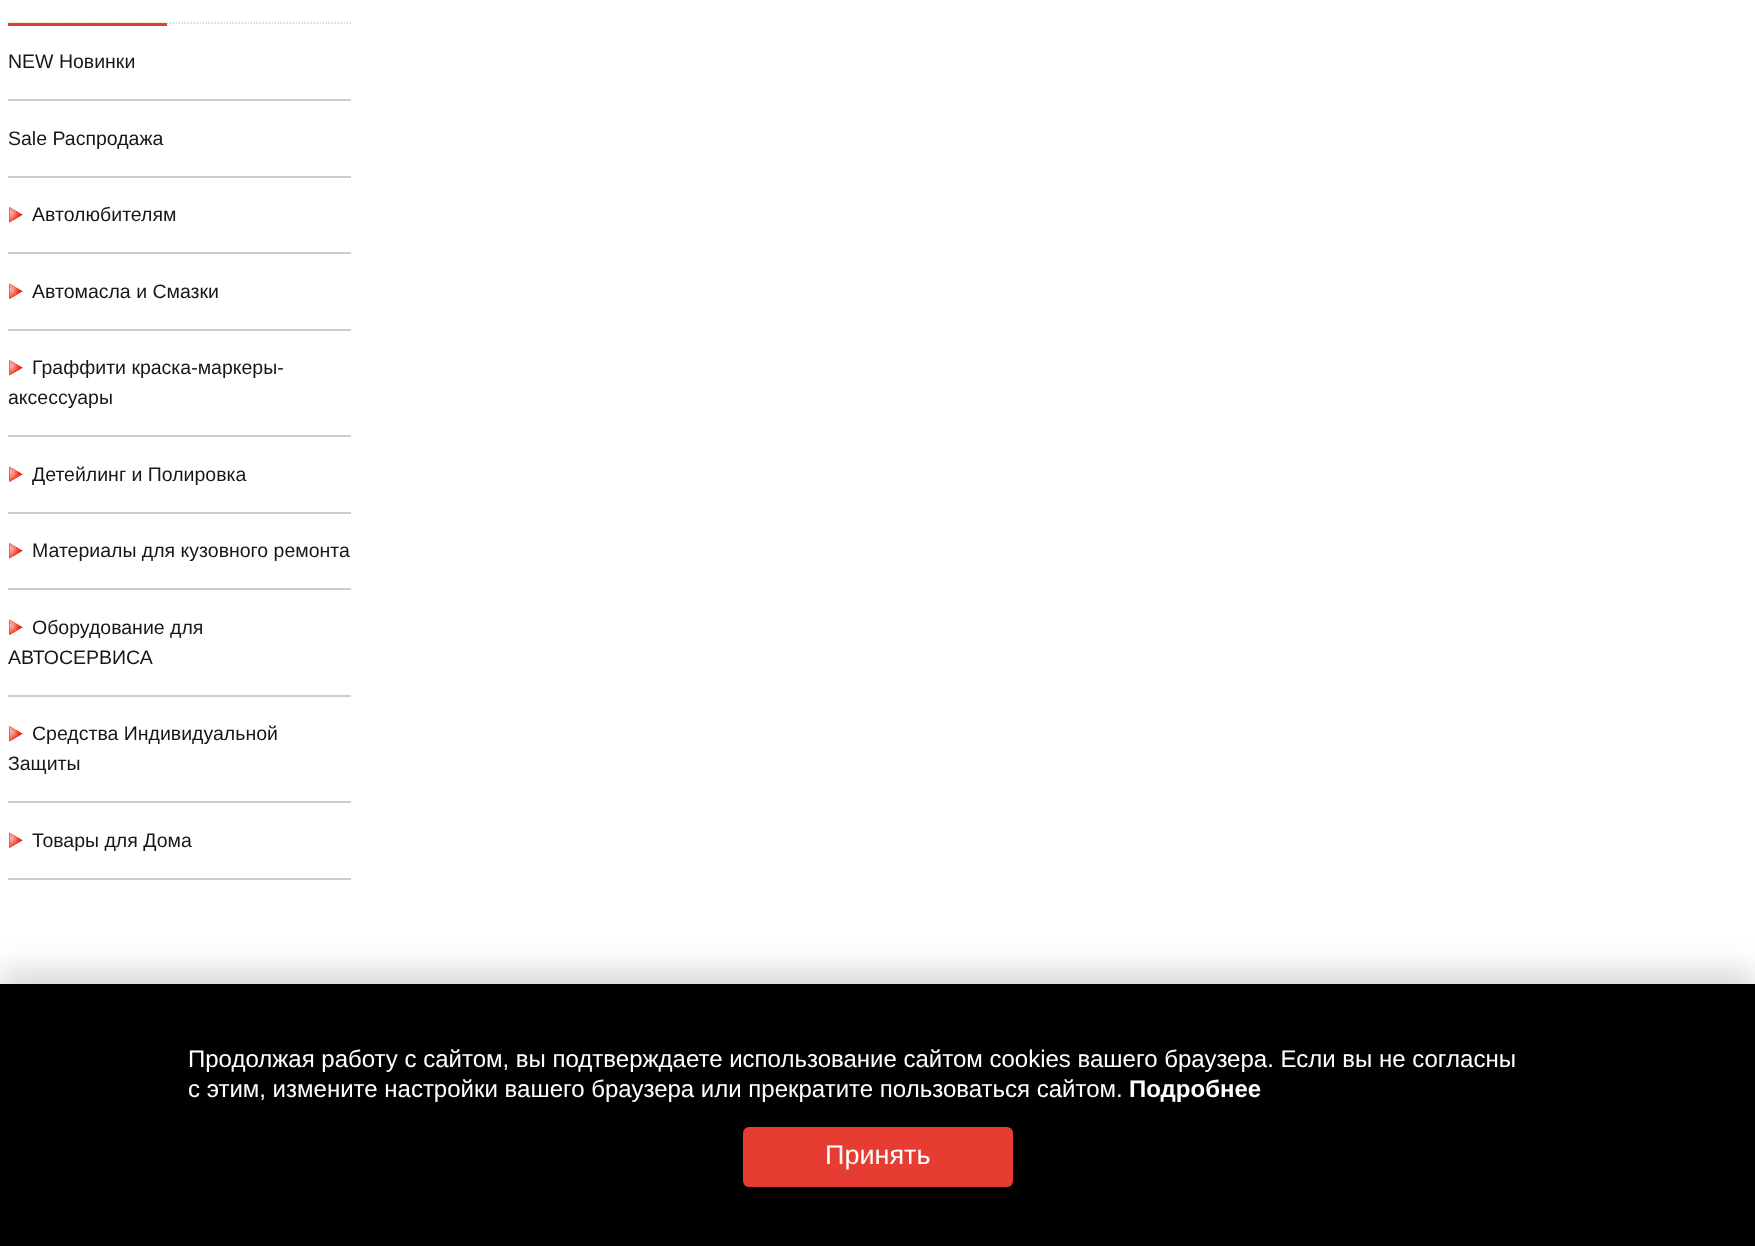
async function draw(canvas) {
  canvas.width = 1755;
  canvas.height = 1246;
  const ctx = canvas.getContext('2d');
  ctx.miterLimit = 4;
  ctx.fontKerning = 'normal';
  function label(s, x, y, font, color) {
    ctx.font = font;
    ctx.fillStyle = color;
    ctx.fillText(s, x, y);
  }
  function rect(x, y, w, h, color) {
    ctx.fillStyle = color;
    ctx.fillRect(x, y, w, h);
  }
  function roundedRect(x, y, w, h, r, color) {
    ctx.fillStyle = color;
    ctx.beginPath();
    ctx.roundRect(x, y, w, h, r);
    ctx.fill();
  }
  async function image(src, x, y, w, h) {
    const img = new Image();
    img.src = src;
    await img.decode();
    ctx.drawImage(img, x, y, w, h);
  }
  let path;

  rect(0, 0, 1755, 1246, '#fff');
  path = new Path2D('M7.5 23H351');
  ctx.strokeStyle = '#cbcdcb';
  ctx.lineWidth = 1.5;
  ctx.setLineDash([1.5, 1.5]);
  ctx.stroke(path);
  rect(8, 23, 159, 3, '#e73c31');
  rect(8, 99, 343, 2, '#cbcdcb');
  label('NEW Новинки', 8, 68, '19.5px Liberation Sans', '#171717');
  rect(8, 176, 343, 2, '#cbcdcb');
  label('Sale Распродажа', 8, 145, '19.5px Liberation Sans', '#171717');
  rect(8, 252, 343, 2, '#cbcdcb');
  await image('assets/img1.png', 9, 207, 14, 16);
  label('Автолюбителям', 32, 221, '19.5px Liberation Sans', '#171717');
  rect(8, 329, 343, 2, '#cbcdcb');
  await image('assets/img2.png', 9, 283, 14, 16);
  label('Автомасла и Смазки', 32, 298, '19.5px Liberation Sans', '#171717');
  rect(8, 435, 343, 2, '#cbcdcb');
  await image('assets/img1.png', 9, 360, 14, 16);
  label('Граффити краска-маркеры-', 32, 374, '19.5px Liberation Sans', '#171717');
  label('аксессуары', 8, 404, '19.5px Liberation Sans', '#171717');
  rect(8, 512, 343, 2, '#cbcdcb');
  await image('assets/img2.png', 9, 466, 14, 16);
  label('Детейлинг и Полировка', 32, 481, '19.5px Liberation Sans', '#171717');
  rect(8, 588, 343, 2, '#cbcdcb');
  await image('assets/img1.png', 9, 543, 14, 16);
  label('Материалы для кузовного ремонта', 32, 557, '19.5px Liberation Sans', '#171717');
  rect(8, 695, 343, 2, '#cbcdcb');
  await image('assets/img2.png', 9, 619, 14, 16);
  label('Оборудование для', 32, 634, '19.5px Liberation Sans', '#171717');
  label('АВТОСЕРВИСА', 8, 664, '19.5px Liberation Sans', '#171717');
  rect(8, 801, 343, 2, '#cbcdcb');
  await image('assets/img1.png', 9, 726, 14, 16);
  label('Средства Индивидуальной', 32, 740, '19.5px Liberation Sans', '#171717');
  label('Защиты', 8, 770, '19.5px Liberation Sans', '#171717');
  rect(8, 878, 343, 2, '#cbcdcb');
  await image('assets/img2.png', 9, 832, 14, 16);
  label('Товары для Дома', 32, 847, '19.5px Liberation Sans', '#171717');
  ctx.fillStyle = '#00000026';
  ctx.filter = 'blur(15px)';
  ctx.beginPath();
  ctx.rect(0, 969, 1755, 263);
  ctx.fill();
  ctx.filter = 'none';
  rect(0, 984, 1755, 262, '#000');
  label('Продолжая работу с сайтом, вы подтверждаете использование сайтом cookies вашего браузера. Если вы не согласны', 188, 1067, '24px Liberation Sans', '#fff');
  label('с этим, измените настройки вашего браузера или прекратите пользоваться сайтом.', 188, 1097, '24px Liberation Sans', '#fff');
  label('Подробнее', 1129, 1097, 'bold 24px Liberation Sans', '#fff');
  roundedRect(743, 1127, 270, 60, 6, '#e73c31');
  label('Принять', 825, 1164, '27px Liberation Sans', '#fff');
}

draw(document.querySelector('canvas'));
